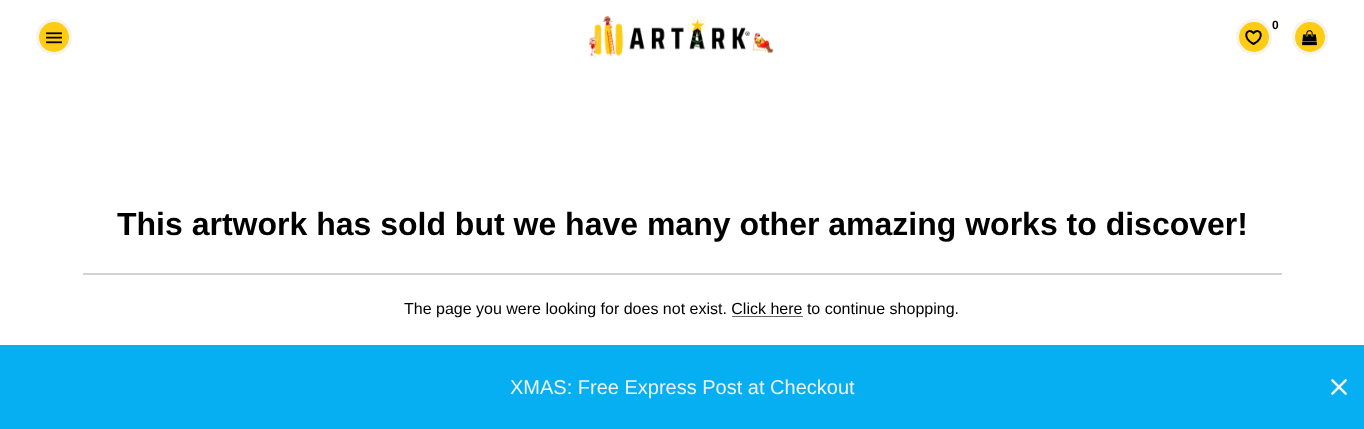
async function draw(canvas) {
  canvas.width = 1364;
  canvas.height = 429;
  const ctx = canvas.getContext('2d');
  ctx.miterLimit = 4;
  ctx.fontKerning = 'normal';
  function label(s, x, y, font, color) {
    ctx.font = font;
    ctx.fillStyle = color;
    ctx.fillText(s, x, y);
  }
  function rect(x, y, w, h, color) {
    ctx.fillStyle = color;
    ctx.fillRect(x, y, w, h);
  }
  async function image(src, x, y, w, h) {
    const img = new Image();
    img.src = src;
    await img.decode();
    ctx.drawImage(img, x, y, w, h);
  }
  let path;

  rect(0, 0, 1364, 429, '#fff');
  ctx.fillStyle = '#ffcc14';
  ctx.beginPath();
  ctx.arc(54, 37, 16.5, 0, 2 * Math.PI);
  ctx.fill();
  ctx.strokeStyle = '#f8f4ed';
  ctx.lineWidth = 3;
  ctx.stroke();
  await image('assets/img1.png', 46, 32, 16, 12);
  await image('assets/img2.png', 588, 16, 186, 42);
  ctx.beginPath();
  ctx.arc(1254, 37, 16.5, 0, 2 * Math.PI);
  ctx.fill();
  ctx.stroke();
  label('0', 1272, 29, 'bold 12px Liberation Sans', '#000');
  path = new Path2D('M1253.5 44C1241 38 1247 26.5 1253.5 33C1260 26.5 1266 38 1253.5 44Z');
  ctx.strokeStyle = '#000';
  ctx.lineWidth = 2;
  ctx.stroke(path);
  ctx.fillStyle = '#ffcc14';
  ctx.beginPath();
  ctx.arc(1310, 37, 16.5, 0, 2 * Math.PI);
  ctx.fill();
  ctx.strokeStyle = '#f8f4ed';
  ctx.lineWidth = 3;
  ctx.stroke();
  await image('assets/img3.png', 1302, 30, 15, 16);
  label('This artwork has sold but we have many other amazing works to discover!', 117, 235, 'bold 32px Liberation Sans', '#000');
  rect(83, 273, 1199, 2, '#d3d3d3');
  label('The page you were looking for does not exist. Click here to continue shopping.', 404, 314, '16px Liberation Sans', '#000');
  rect(732, 316, 71, 1, '#666');
  rect(0, 345, 1364, 84, '#05aff2');
  label('XMAS: Free Express Post at Checkout', 510, 394, '20px Liberation Sans', '#f2f2f2');
  await image('assets/img4.png', 1331, 379, 16, 16);
}

draw(document.querySelector('canvas'));
